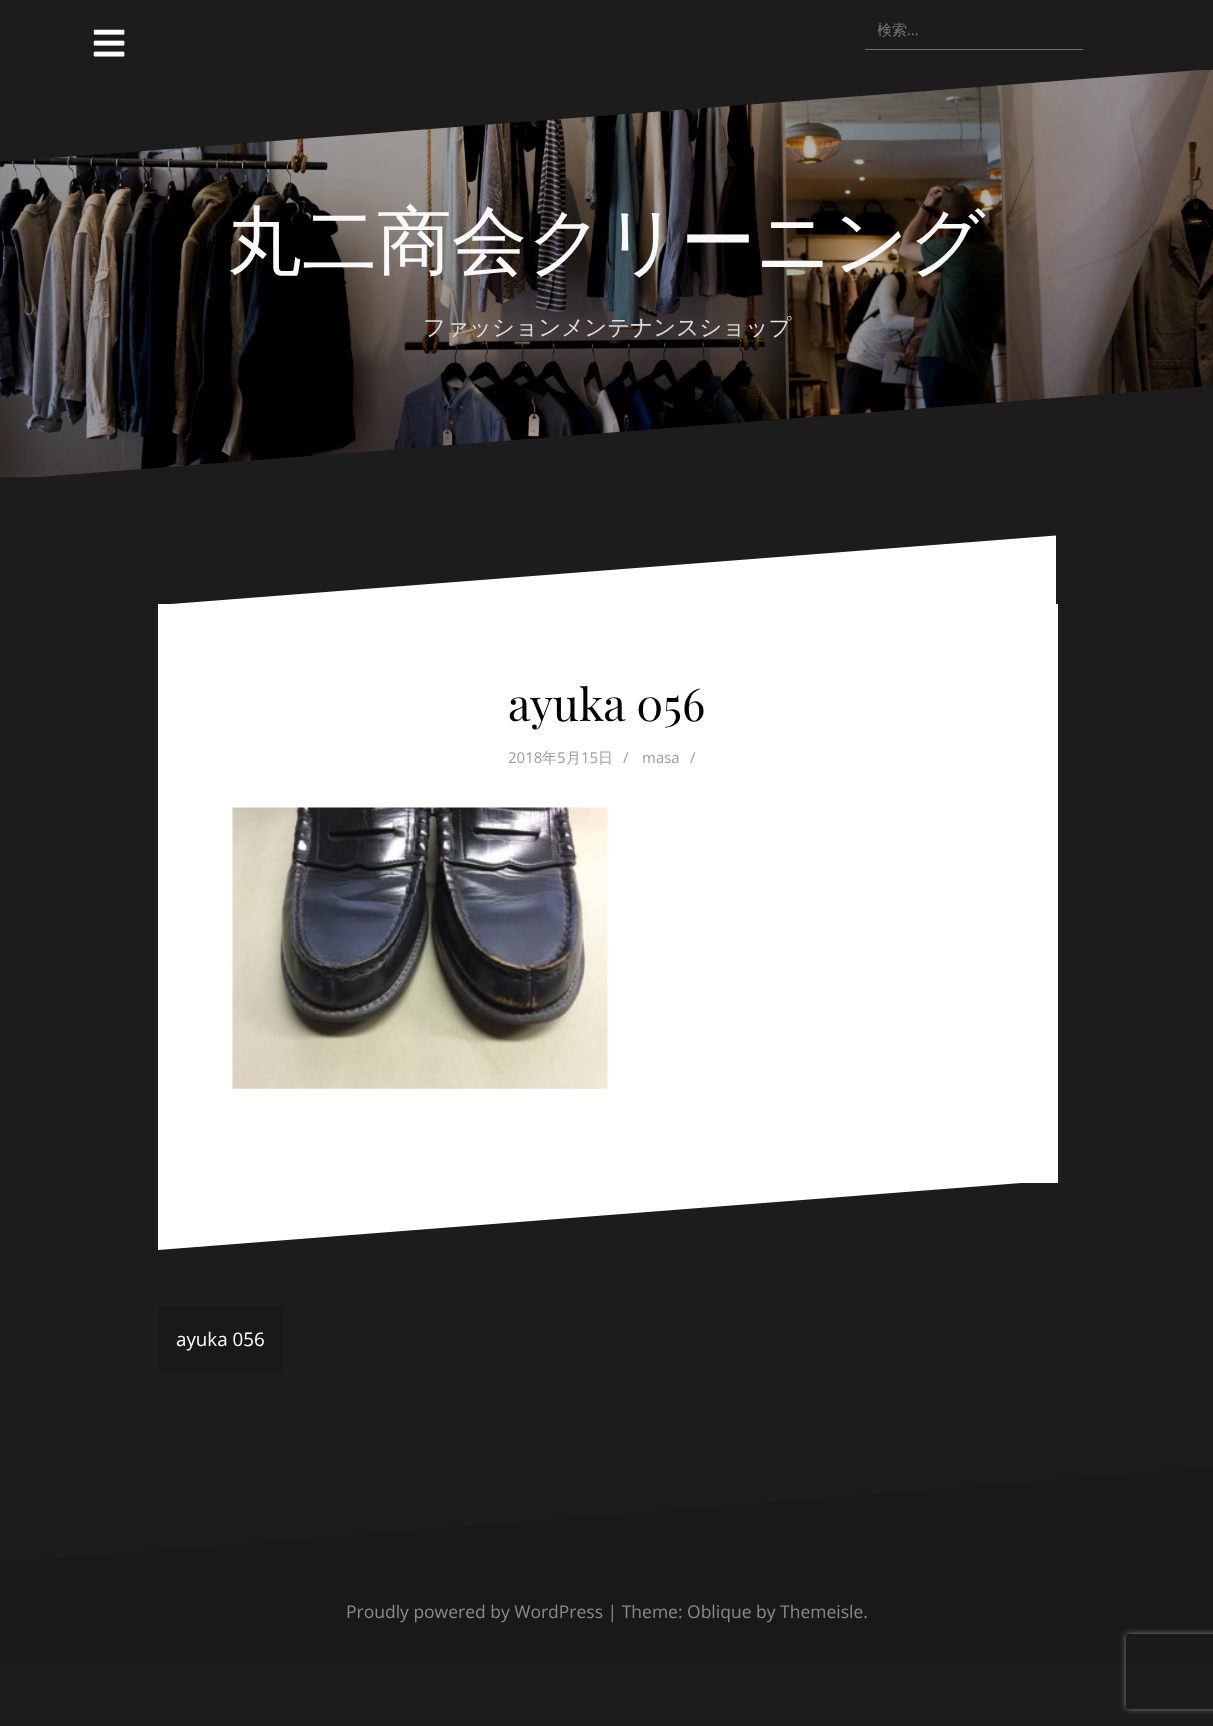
async function draw(canvas) {
  canvas.width = 1213;
  canvas.height = 1726;
  const ctx = canvas.getContext('2d');
  ctx.miterLimit = 4;
  ctx.fontKerning = 'normal';
  function label(s, x, y, font, color) {
    ctx.font = font;
    ctx.fillStyle = color;
    ctx.fillText(s, x, y);
  }
  function rect(x, y, w, h, color) {
    ctx.fillStyle = color;
    ctx.fillRect(x, y, w, h);
  }
  async function image(src, x, y, w, h) {
    const img = new Image();
    img.src = src;
    await img.decode();
    ctx.drawImage(img, x, y, w, h);
  }
  let path;

  rect(0, 0, 1213, 1726, '#1c1c1c');
  rect(0, 477, 39, 1, '#141414');
  await image('assets/img1.png', 93, 29, 32, 28);
  rect(865, 49, 218, 1, '#6f6f6f');
  ctx.save();
  ctx.beginPath();
  ctx.rect(878, 19, 187, 22);
  ctx.clip();
  label('検索', 877, 35, '500 15px WenQuanYi Zen Hei', '#757575');
  ctx.restore();
  label('…', 907, 35, '15px Open Sans', '#757575');
  await image('assets/img2.png', 0, 70, 1213, 408);
  ctx.save();
  ctx.beginPath();
  ctx.rect(0, 69, 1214, 92);
  ctx.clip();
  ctx.fillStyle = '#1c1c1c';
  path = new Path2D('M0 162V69H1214');
  ctx.fill(path);
  ctx.restore();
  label('丸二商会クリーニング', 227, 267, '500 75px WenQuanYi Zen Hei', '#f9f9f9');
  label('ファッションメンテナンスショップ', 423, 335, '500 22.5px WenQuanYi Zen Hei', '#ddd');
  ctx.fillStyle = '#1c1c1c';
  path = new Path2D('M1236 384V480H0');
  ctx.fill(path);
  rect(158, 604, 900, 579, '#fff');
  ctx.save();
  ctx.beginPath();
  ctx.rect(158, 534, 898, 71);
  ctx.clip();
  path = new Path2D('M1074 534V605H158');
  ctx.fill(path);
  ctx.restore();
  label('ayuka 056', 508, 721, '45px Playfair Display', '#000');
  label('2018', 508, 763, '15px Open Sans', '#9d9d9d');
  label('年', 542, 763, '500 15px WenQuanYi Zen Hei', '#9d9d9d');
  label('5', 557, 763, '15px Open Sans', '#9d9d9d');
  label('月', 566, 763, '500 15px WenQuanYi Zen Hei', '#9d9d9d');
  label('15', 581, 763, '15px Open Sans', '#9d9d9d');
  label('日', 598, 763, '500 15px WenQuanYi Zen Hei', '#9d9d9d');
  label('/', 623, 763, '15px Open Sans', '#9d9d9d');
  label('masa', 642, 763, '15px Open Sans', '#9d9d9d');
  label('/', 690, 763, '15px Open Sans', '#9d9d9d');
  await image('assets/img3.png', 232, 807, 376, 282);
  ctx.fillStyle = '#fff';
  path = new Path2D('M158 1250V1180H1060');
  ctx.fill(path);
  rect(158, 1306, 125, 67, '#17191b');
  label('ayuka 056', 176, 1346, '18.75px Open Sans', '#fff');
  rect(0, 1560, 1213, 104, '#17191b');
  path = new Path2D('M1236 1466V1563H0');
  ctx.fill(path);
  label('Proudly powered by WordPress | Theme: Oblique by Themeisle.', 346, 1618, '17.5px Open Sans', '#8b8b8b');
  ctx.save();
  path = new Path2D('M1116 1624H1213V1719H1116ZM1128.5 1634H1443.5C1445 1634 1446 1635 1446 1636.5V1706.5C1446 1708 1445 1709 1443.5 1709H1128.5C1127 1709 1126 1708 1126 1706.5V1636.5C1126 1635 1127 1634 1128.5 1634Z');
  ctx.clip(path, 'evenodd');
  ctx.fillStyle = '#808080';
  ctx.filter = 'blur(3px)';
  ctx.beginPath();
  ctx.roundRect(1126, 1634, 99, 75, 2.5);
  ctx.fill();
  ctx.filter = 'none';
  ctx.restore();
}

draw(document.querySelector('canvas'));
